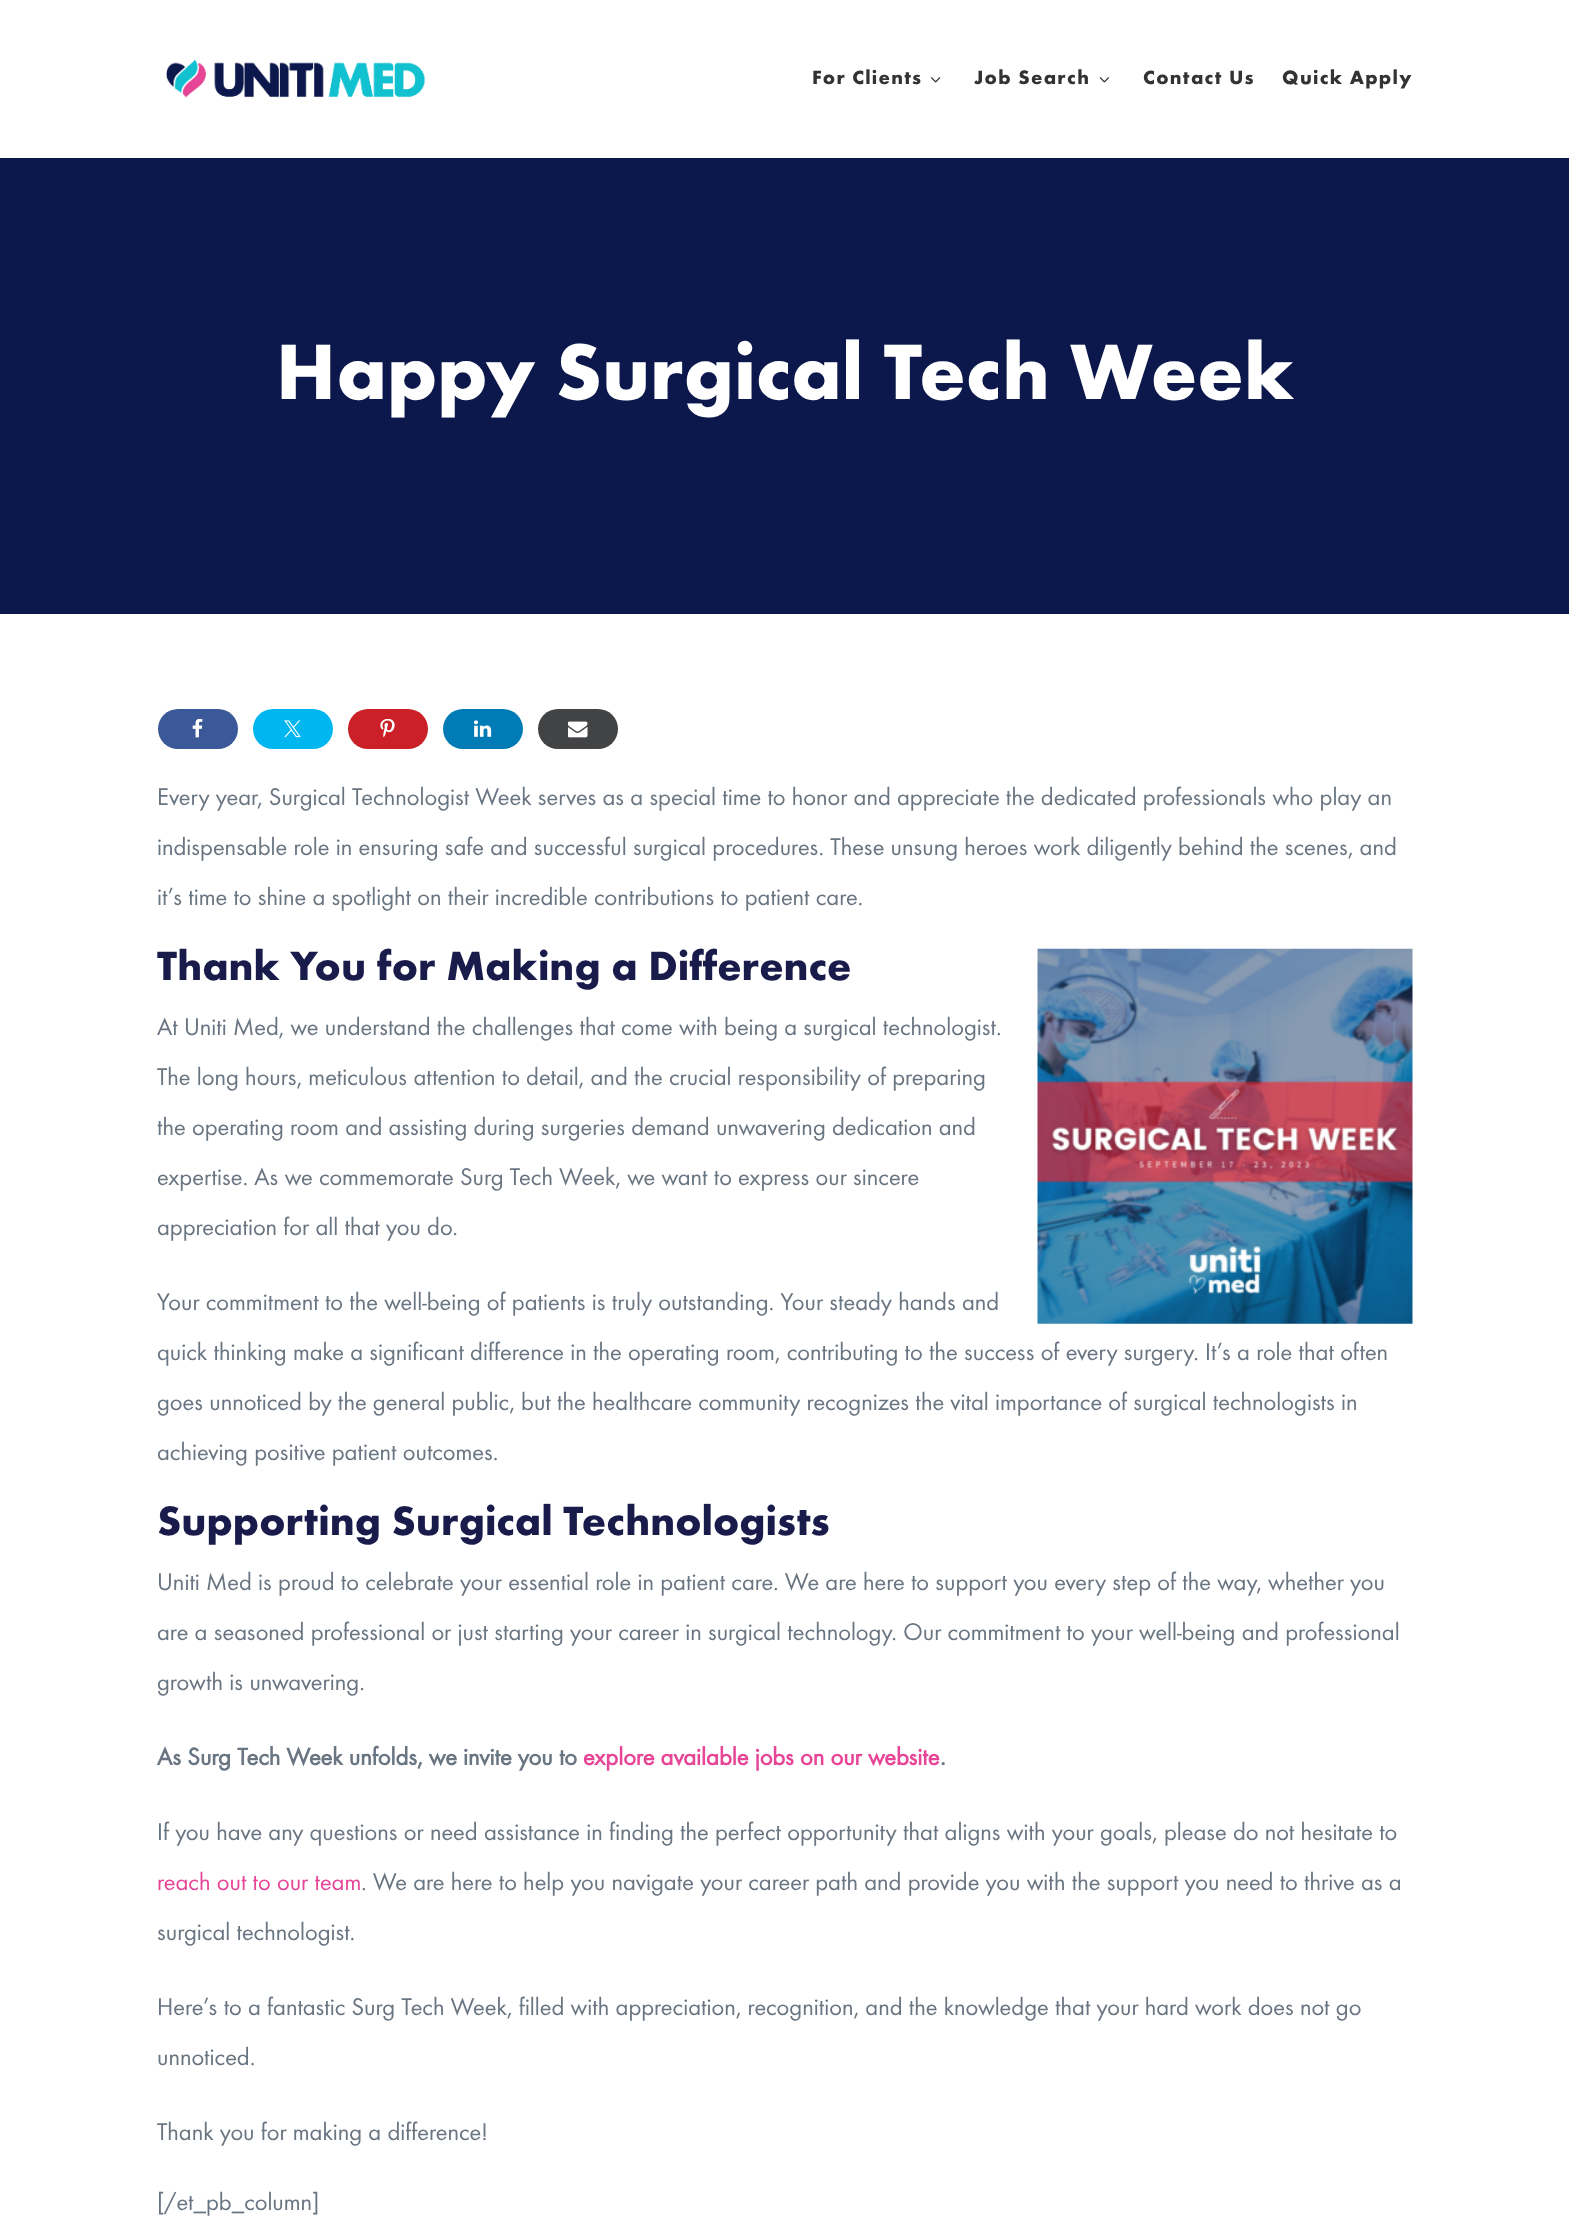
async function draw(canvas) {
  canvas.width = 1569;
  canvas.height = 2232;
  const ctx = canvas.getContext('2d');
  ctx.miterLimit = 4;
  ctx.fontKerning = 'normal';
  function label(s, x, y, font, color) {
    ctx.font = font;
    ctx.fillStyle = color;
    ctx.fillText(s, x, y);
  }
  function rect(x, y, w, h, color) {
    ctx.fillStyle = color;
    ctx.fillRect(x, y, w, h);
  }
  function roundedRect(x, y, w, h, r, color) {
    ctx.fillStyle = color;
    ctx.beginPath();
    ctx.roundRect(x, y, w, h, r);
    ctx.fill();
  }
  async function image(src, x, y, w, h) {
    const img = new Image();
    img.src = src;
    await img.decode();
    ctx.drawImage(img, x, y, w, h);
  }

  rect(0, 0, 1569, 2232, '#fff');
  await image('assets/img1.png', 166, 60, 259, 38);
  ctx.letterSpacing = '1.25px';
  label('For Clients', 812, 84, 'bold 20px Futura', '#333');
  await image('assets/img2.png', 931, 77, 10, 6);
  label('Job Search', 974, 84, 'bold 20px Futura', '#333');
  await image('assets/img3.png', 1099, 77, 10, 6);
  label('Contact Us', 1143, 84, 'bold 20px Futura', '#333');
  label('Quick Apply', 1282, 84, 'bold 20px Futura', '#333');
  rect(0, 158, 1569, 456, '#0c184c');
  ctx.letterSpacing = '0px';
  label('Happy Surgical Tech Week', 276, 399, 'bold 81.25px Futura', '#fff');
  roundedRect(158, 709, 80, 40, 20, '#3b5998');
  await image('assets/img4.png', 192, 719, 11, 19);
  roundedRect(253, 709, 80, 40, 20, '#00b6f1');
  await image('assets/img5.png', 284, 720, 17, 18);
  roundedRect(348, 709, 80, 40, 20, '#cb2027');
  await image('assets/img6.png', 380, 719, 15, 19);
  roundedRect(443, 709, 80, 40, 20, '#007bb6');
  await image('assets/img7.png', 473, 720, 19, 17);
  roundedRect(538, 709, 80, 40, 20, '#424345');
  await image('assets/img8.png', 568, 721, 20, 17);
  label('Every year, Surgical Technologist Week serves as a special time to honor and appreciate the dedicated professionals who play an', 157, 805, '25px Futura', '#6a7582');
  label('indispensable role in ensuring safe and successful surgical procedures. These unsung heroes work diligently behind the scenes, and', 157, 855, '25px Futura', '#6a7582');
  label('it’s time to shine a spotlight on their incredible contributions to patient care.', 157, 905, '25px Futura', '#6a7582');
  label('Thank You for Making a Difference', 157, 980, 'bold 42.5px Futura', '#191b4a');
  await image('assets/img9.png', 1037, 948, 376, 376);
  label('At Uniti Med, we understand the challenges that come with being a surgical technologist.', 157, 1035, '25px Futura', '#6a7582');
  label('The long hours, meticulous attention to detail, and the crucial responsibility of preparing', 157, 1085, '25px Futura', '#6a7582');
  label('the operating room and assisting during surgeries demand unwavering dedication and', 157, 1135, '25px Futura', '#6a7582');
  label('expertise. As we commemorate Surg Tech Week, we want to express our sincere', 157, 1185, '25px Futura', '#6a7582');
  label('appreciation for all that you do.', 157, 1235, '25px Futura', '#6a7582');
  label('Your commitment to the well-being of patients is truly outstanding. Your steady hands and', 157, 1310, '25px Futura', '#6a7582');
  label('quick thinking make a significant difference in the operating room, contributing to the success of every surgery. It’s a role that often', 157, 1360, '25px Futura', '#6a7582');
  label('goes unnoticed by the general public, but the healthcare community recognizes the vital importance of surgical technologists in', 157, 1410, '25px Futura', '#6a7582');
  label('achieving positive patient outcomes.', 157, 1460, '25px Futura', '#6a7582');
  label('Supporting Surgical Technologists', 157, 1535, 'bold 42.5px Futura', '#191b4a');
  label('Uniti Med is proud to celebrate your essential role in patient care. We are here to support you every step of the way, whether you', 157, 1590, '25px Futura', '#6a7582');
  label('are a seasoned professional or just starting your career in surgical technology. Our commitment to your well-being and professional', 157, 1640, '25px Futura', '#6a7582');
  label('growth is unwavering.', 157, 1690, '25px Futura', '#6a7582');
  label('As Surg Tech Week unfolds, we invite you to', 157, 1765, 'bold 25px "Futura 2"', '#6a7582');
  label('explore available jobs on our website', 583, 1765, 'bold 25px "Futura 2"', '#e74697');
  label('.', 940, 1765, 'bold 25px "Futura 2"', '#6a7582');
  label('If you have any questions or need assistance in finding the perfect opportunity that aligns with your goals, please do not hesitate to', 157, 1840, '25px Futura', '#6a7582');
  label('reach out to our team', 157, 1890, '25px Futura', '#e74697');
  label('. We are here to help you navigate your career path and provide you with the support you need to thrive as a', 361, 1890, '25px Futura', '#6a7582');
  label('surgical technologist.', 157, 1940, '25px Futura', '#6a7582');
  label('Here’s to a fantastic Surg Tech Week, filled with appreciation, recognition, and the knowledge that your hard work does not go', 157, 2015, '25px Futura', '#6a7582');
  label('unnoticed.', 157, 2065, '25px Futura', '#6a7582');
  label('Thank you for making a difference!', 157, 2140, '25px Futura', '#6a7582');
  label('[/et_pb_column]', 157, 2210, '25px Futura', '#6a7582');
}

draw(document.querySelector('canvas'));
